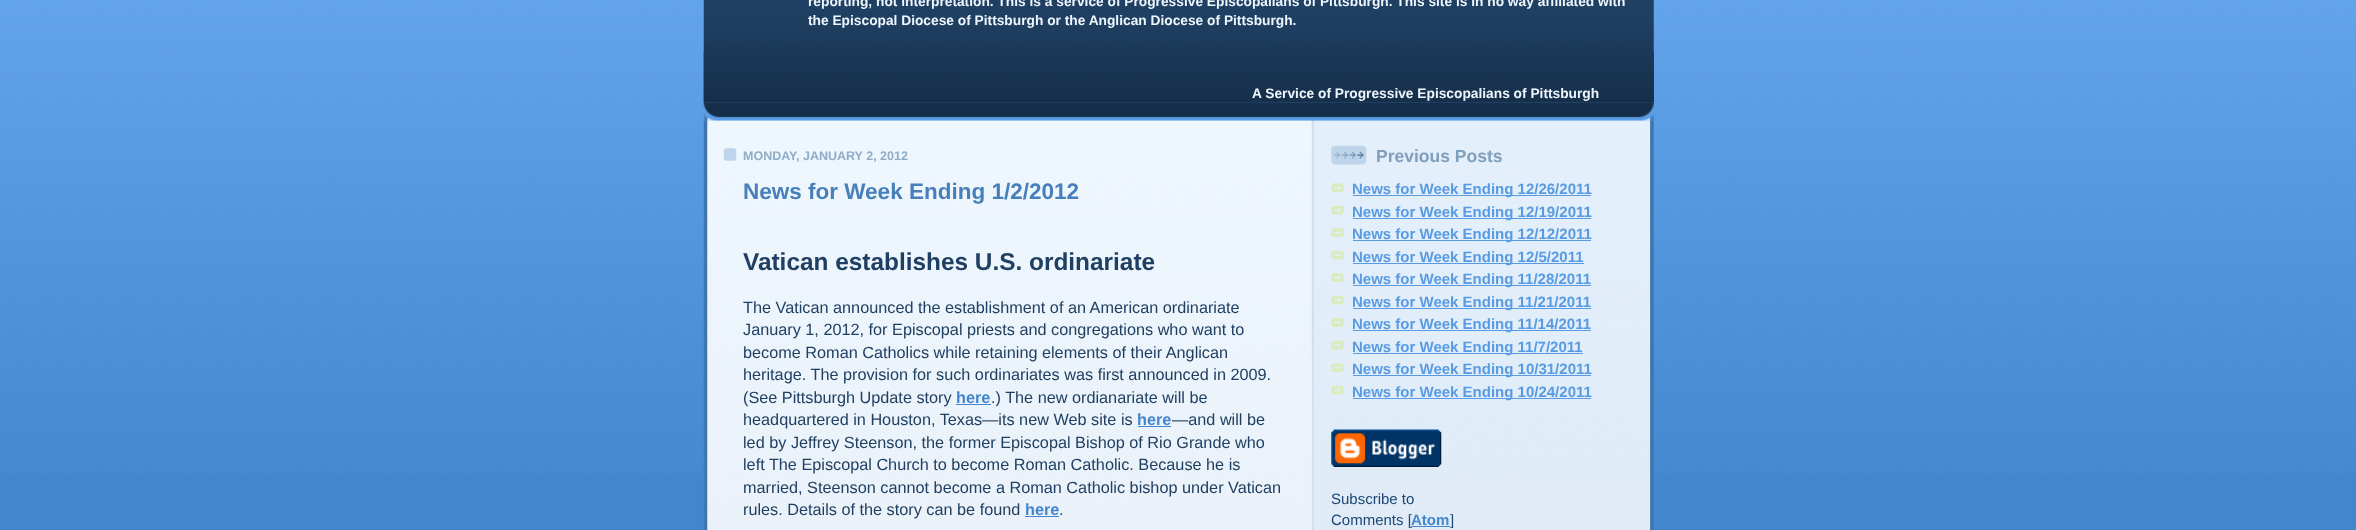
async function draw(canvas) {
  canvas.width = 2356;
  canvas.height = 530;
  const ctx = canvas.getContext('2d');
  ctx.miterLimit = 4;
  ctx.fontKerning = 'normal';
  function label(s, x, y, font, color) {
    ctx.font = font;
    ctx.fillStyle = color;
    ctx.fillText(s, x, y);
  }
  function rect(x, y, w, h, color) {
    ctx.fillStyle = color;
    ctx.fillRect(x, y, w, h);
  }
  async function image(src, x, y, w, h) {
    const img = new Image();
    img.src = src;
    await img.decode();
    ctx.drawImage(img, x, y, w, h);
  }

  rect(0, 0, 2356, 530, '#4386ce');
  await image('assets/img1.png', 0, 0, 2356, 473);
  await image('assets/img2.png', 703, 102, 951, 19);
  await image('assets/img3.png', 703, 0, 951, 102);
  label('reporting, not interpretation. This is a service of Progressive Episcopalians of Pittsburgh. This site is in no way affiliated with', 808, 6, 'bold 13.75px Liberation Sans', '#eef6fe');
  label('the Episcopal Diocese of Pittsburgh or the Anglican Diocese of Pittsburgh.', 808, 25, 'bold 13.75px Liberation Sans', '#eef6fe');
  rect(704, 53, 950, 50, '#204063');
  await image('assets/img4.png', 703, 52, 951, 50);
  label('A Service of Progressive Episcopalians of Pittsburgh', 1252, 98, 'bold 13.75px Liberation Sans', '#eef6fe');
  await image('assets/img5.png', 703, 120, 951, 410);
  await image('assets/img6.png', 707, 120, 605, 410);
  await image('assets/img7.png', 723, 148, 14, 13);
  label('MONDAY, JANUARY 2, 2012', 743, 160, 'bold 12.5px Liberation Sans', '#8facc8');
  label('News for Week Ending 1/2/2012', 743, 199, 'bold 22.5px Liberation Sans', '#477fba');
  label('Vatican establishes U.S. ordinariate', 743, 270, 'bold 24.4px Liberation Sans', '#204063');
  label('The Vatican announced the establishment of an American ordinariate', 743, 313, '16.25px Liberation Sans', '#204063');
  label('January 1, 2012, for Episcopal priests and congregations who want to', 743, 335, '16.25px Liberation Sans', '#204063');
  label('become Roman Catholics while retaining elements of their Anglican', 743, 358, '16.25px Liberation Sans', '#204063');
  label('heritage. The provision for such ordinariates was first announced in 2009.', 743, 380, '16.25px Liberation Sans', '#204063');
  label('(See Pittsburgh Update story', 743, 403, '16.25px Liberation Sans', '#204063');
  label('here', 956, 403, 'bold 16.25px Liberation Sans', '#4386ce');
  rect(956, 404, 35, 1, '#4386ce');
  label('.) The new ordianariate will be', 991, 403, '16.25px Liberation Sans', '#204063');
  label('headquartered in Houston, Texas—its new Web site is', 743, 425, '16.25px Liberation Sans', '#204063');
  label('here', 1137, 425, 'bold 16.25px Liberation Sans', '#4386ce');
  rect(1138, 426, 33, 1, '#4386ce');
  label('—and will be', 1172, 425, '16.25px Liberation Sans', '#204063');
  label('led by Jeffrey Steenson, the former Episcopal Bishop of Rio Grande who', 743, 448, '16.25px Liberation Sans', '#204063');
  label('left The Episcopal Church to become Roman Catholic. Because he is', 743, 470, '16.25px Liberation Sans', '#204063');
  label('married, Steenson cannot become a Roman Catholic bishop under Vatican', 743, 493, '16.25px Liberation Sans', '#204063');
  label('rules. Details of the story can be found', 743, 515, '16.25px Liberation Sans', '#204063');
  label('here', 1025, 515, 'bold 16.25px Liberation Sans', '#4386ce');
  rect(1025, 516, 34, 1, '#4386ce');
  label('.', 1059, 515, '16.25px Liberation Sans', '#204063');
  await image('assets/img8.png', 1313, 120, 337, 410);
  await image('assets/img9.png', 1331, 145, 36, 20);
  label('Previous Posts', 1376, 162, 'bold 17.5px Liberation Sans', '#809fbd');
  await image('assets/img10.png', 1331, 183, 13, 9);
  rect(1353, 195, 238, 1, '#599be2');
  label('News for Week Ending 12/26/2011', 1352, 194, 'bold 15px Liberation Sans', '#599be2');
  await image('assets/img11.png', 1331, 205, 13, 10);
  rect(1353, 218, 238, 1, '#599be2');
  label('News for Week Ending 12/19/2011', 1352, 217, 'bold 15px Liberation Sans', '#599be2');
  await image('assets/img12.png', 1331, 228, 13, 9);
  rect(1353, 240, 238, 1, '#599be2');
  label('News for Week Ending 12/12/2011', 1352, 239, 'bold 15px Liberation Sans', '#599be2');
  await image('assets/img13.png', 1331, 250, 13, 10);
  rect(1353, 263, 231, 1, '#599be2');
  label('News for Week Ending 12/5/2011', 1352, 262, 'bold 15px Liberation Sans', '#599be2');
  await image('assets/img14.png', 1331, 273, 13, 9);
  rect(1353, 285, 238, 1, '#599be2');
  label('News for Week Ending 11/28/2011', 1352, 284, 'bold 15px Liberation Sans', '#599be2');
  await image('assets/img15.png', 1331, 295, 13, 10);
  rect(1353, 308, 238, 1, '#599be2');
  label('News for Week Ending 11/21/2011', 1352, 307, 'bold 15px Liberation Sans', '#599be2');
  await image('assets/img16.png', 1331, 318, 13, 9);
  rect(1353, 330, 238, 1, '#599be2');
  label('News for Week Ending 11/14/2011', 1352, 329, 'bold 15px Liberation Sans', '#599be2');
  await image('assets/img17.png', 1331, 340, 13, 10);
  rect(1353, 353, 230, 1, '#599be2');
  label('News for Week Ending 11/7/2011', 1352, 352, 'bold 15px Liberation Sans', '#599be2');
  await image('assets/img18.png', 1331, 363, 13, 9);
  rect(1353, 375, 238, 1, '#599be2');
  label('News for Week Ending 10/31/2011', 1352, 374, 'bold 15px Liberation Sans', '#599be2');
  await image('assets/img19.png', 1331, 385, 13, 10);
  rect(1353, 398, 238, 1, '#599be2');
  label('News for Week Ending 10/24/2011', 1352, 397, 'bold 15px Liberation Sans', '#599be2');
  await image('assets/img20.png', 1331, 429, 111, 38);
  label('Subscribe to', 1331, 504, '15px Liberation Sans', '#1c4676');
  label('Comments [', 1331, 525, '15px Liberation Sans', '#1c4676');
  label('Atom', 1411, 525, 'bold 15px Liberation Sans', '#4386ce');
  rect(1411, 526, 39, 1, '#4386ce');
  label(']', 1450, 525, '15px Liberation Sans', '#1c4676');
}

draw(document.querySelector('canvas'));
